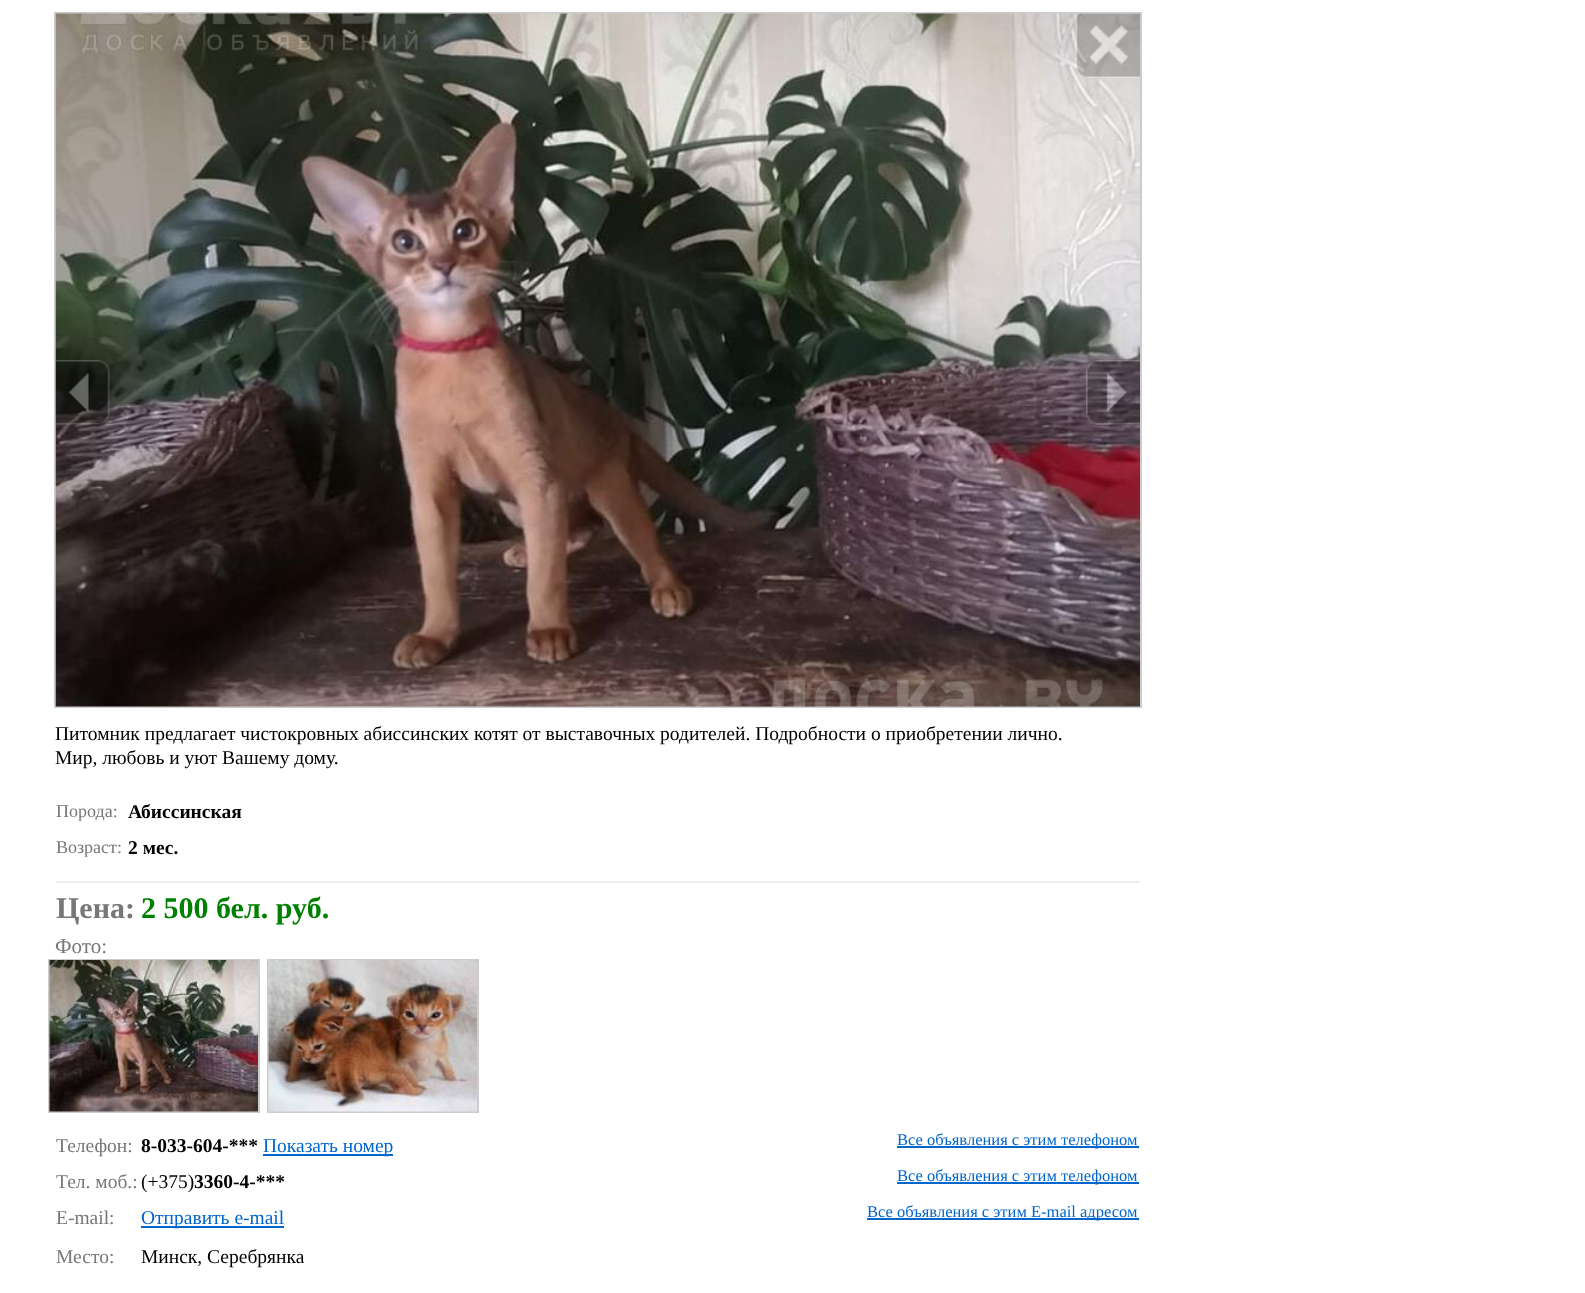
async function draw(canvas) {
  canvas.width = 1585;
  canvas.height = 1293;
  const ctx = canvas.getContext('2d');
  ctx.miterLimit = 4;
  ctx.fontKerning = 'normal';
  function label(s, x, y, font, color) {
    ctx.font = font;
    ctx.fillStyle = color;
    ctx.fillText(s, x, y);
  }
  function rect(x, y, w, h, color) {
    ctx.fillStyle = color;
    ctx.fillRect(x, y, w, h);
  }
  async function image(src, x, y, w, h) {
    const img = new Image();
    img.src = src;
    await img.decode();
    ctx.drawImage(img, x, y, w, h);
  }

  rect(0, 0, 1585, 1293, '#fff');
  ctx.strokeStyle = '#ccc';
  ctx.lineWidth = 2;
  ctx.strokeRect(55, 13, 1086, 694);
  await image('assets/img1.png', 55, 13, 1085, 694);
  await image('assets/img2.png', 1075, 13, 65, 65);
  await image('assets/img3.png', 55, 360, 55, 65);
  await image('assets/img4.png', 1086, 360, 54, 65);
  label('Питомник предлагает чистокровных абиссинских котят от выставочных родителей. Подробности о приобретении лично.', 55, 740, '19.5px Liberation Serif', '#000');
  label('Мир, любовь и уют Вашему дому.', 55, 764, '19.5px Liberation Serif', '#000');
  label('Порода:', 56, 817, '18px Liberation Serif', '#777');
  label('Абиссинская', 128, 818, 'bold 19.5px Liberation Serif', '#000');
  label('Возраст:', 56, 853, '18px Liberation Serif', '#777');
  label('2 мес.', 128, 854, 'bold 19.5px Liberation Serif', '#000');
  rect(56, 881, 1084, 2, '#eee');
  label('Цена:', 56, 918, 'bold 30px Liberation Serif', '#777');
  label('2 500 бел. руб.', 141, 918, 'bold 30px Liberation Serif', '#008000');
  label('Фото:', 55, 953, '21px Liberation Serif', '#777');
  ctx.strokeRect(49, 960, 210, 152);
  await image('assets/img5.png', 49, 960, 209, 152);
  ctx.strokeRect(268, 960, 210, 152);
  await image('assets/img6.png', 268, 960, 209, 152);
  label('Телефон:', 56, 1152, '19.5px Liberation Serif', '#777');
  label('8-033-604-***', 141, 1152, 'bold 19.5px Liberation Serif', '#000');
  rect(263, 1154, 130, 2, '#06c');
  label('Показать номер', 263, 1152, '19.5px Liberation Serif', '#06c');
  rect(897, 1146, 242, 2, '#06c');
  label('Все объявления с этим телефоном', 897, 1145, '16.5px Liberation Serif', '#06c');
  label('Тел. моб.:', 56, 1188, '19.5px Liberation Serif', '#777');
  label('(+375)', 141, 1188, '19.5px Liberation Serif', '#000');
  label('3360-4-***', 194, 1188, 'bold 19.5px Liberation Serif', '#000');
  rect(897, 1182, 242, 2, '#06c');
  label('Все объявления с этим телефоном', 897, 1181, '16.5px Liberation Serif', '#06c');
  label('E-mail:', 56, 1224, '19.5px Liberation Serif', '#777');
  rect(141, 1226, 143, 2, '#06c');
  label('Отправить e-mail', 141, 1224, '19.5px Liberation Serif', '#06c');
  rect(867, 1218, 272, 2, '#06c');
  label('Все объявления с этим E-mail адресом', 867, 1217, '16.5px Liberation Serif', '#06c');
  label('Место:', 56, 1263, '19.5px Liberation Serif', '#777');
  label('Минск, Серебрянка', 141, 1263, '19.5px Liberation Serif', '#000');
}

draw(document.querySelector('canvas'));
